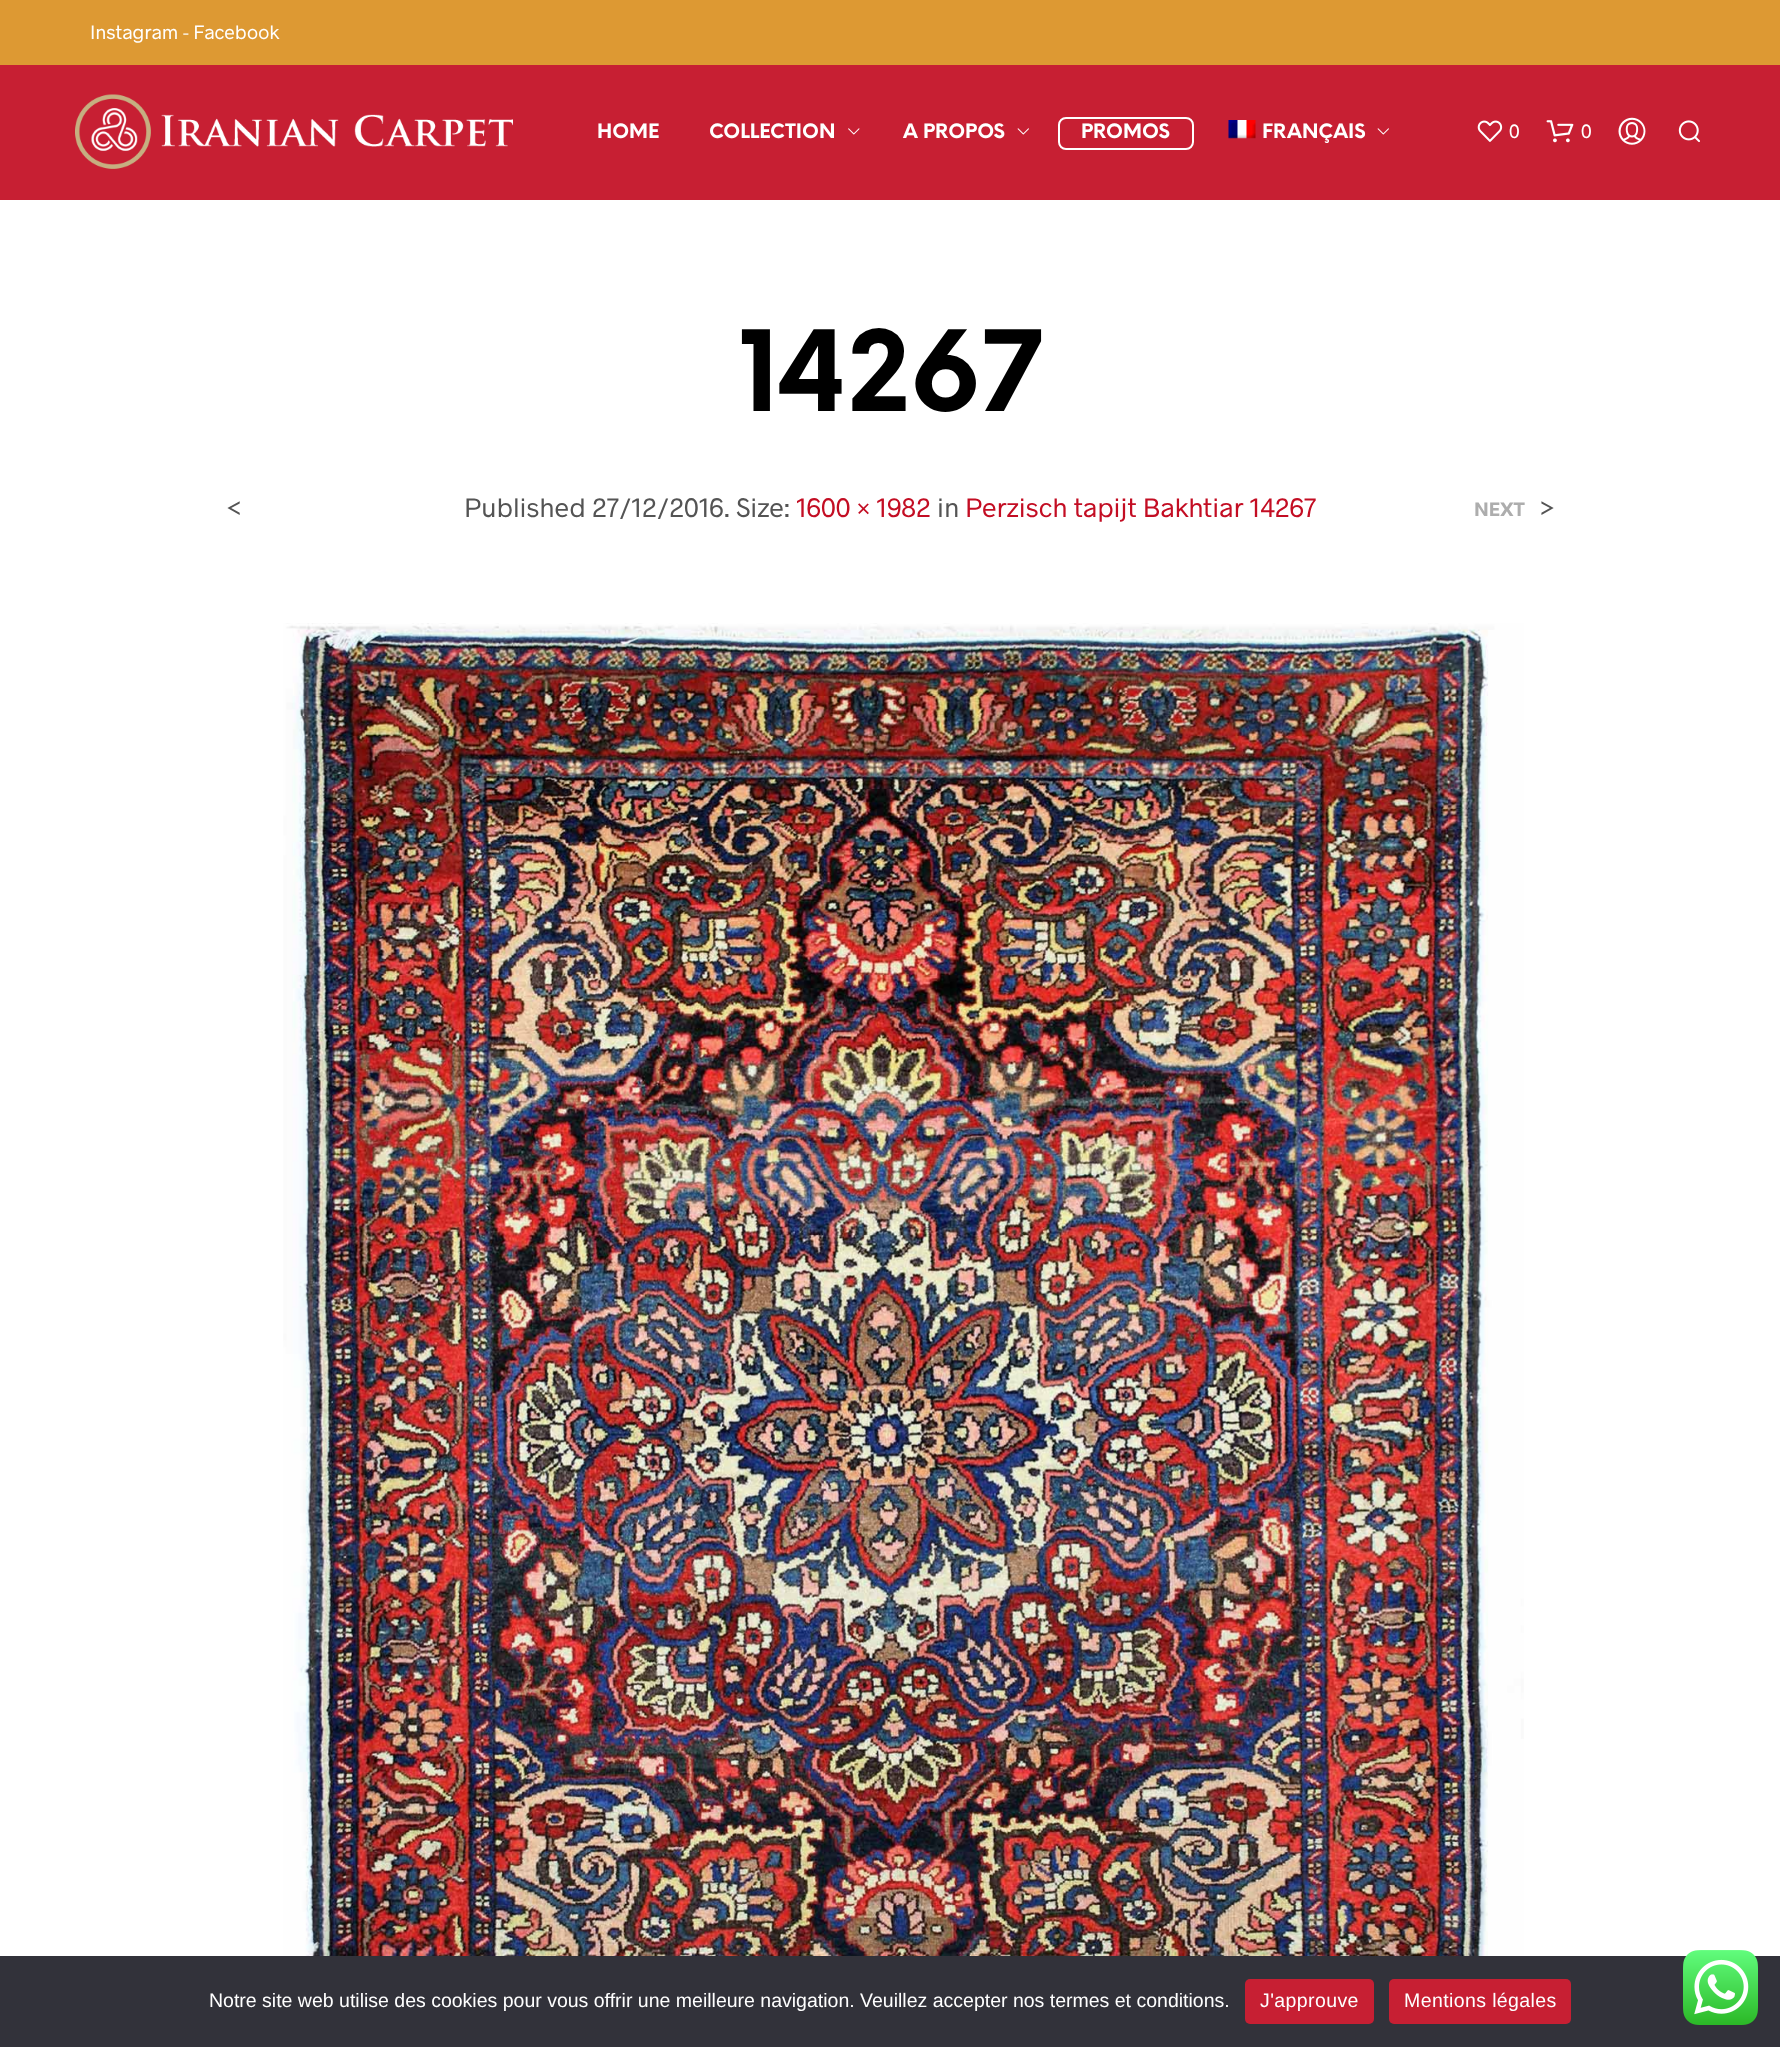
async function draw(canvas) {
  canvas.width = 1780;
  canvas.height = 2047;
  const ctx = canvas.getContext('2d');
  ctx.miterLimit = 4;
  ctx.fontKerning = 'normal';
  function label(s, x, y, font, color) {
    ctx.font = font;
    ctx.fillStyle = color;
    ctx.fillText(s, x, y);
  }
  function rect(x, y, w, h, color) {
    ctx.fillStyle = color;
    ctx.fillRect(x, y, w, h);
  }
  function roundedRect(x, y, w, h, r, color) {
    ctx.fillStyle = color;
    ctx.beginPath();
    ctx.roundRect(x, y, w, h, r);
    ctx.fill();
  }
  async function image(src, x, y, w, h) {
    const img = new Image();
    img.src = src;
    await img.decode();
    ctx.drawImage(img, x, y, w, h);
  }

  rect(0, 0, 1780, 2047, '#fff');
  rect(0, 0, 1780, 65, '#d93');
  label('Instagram - Facebook', 90, 39, '19.5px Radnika', '#fff');
  rect(0, 65, 1780, 135, '#c71f33');
  await image('assets/img1.png', 75, 94, 438, 75);
  label('HOME', 597, 138, 'bold 19.5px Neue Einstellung', '#fff');
  label('COLLECTION', 709, 138, 'bold 19.5px Neue Einstellung', '#fff');
  await image('assets/img2.png', 848, 128, 12, 7);
  label('A PROPOS', 903, 138, 'bold 19.5px Neue Einstellung', '#fff');
  await image('assets/img3.png', 1017, 128, 12, 7);
  ctx.beginPath();
  ctx.roundRect(1059, 118, 134, 31, 7);
  ctx.strokeStyle = '#fff';
  ctx.lineWidth = 2;
  ctx.stroke();
  label('PROMOS', 1081, 138, 'bold 19.5px Neue Einstellung', '#fff');
  await image('assets/img4.png', 1228, 120, 28, 19);
  label('FRANÇAIS', 1262, 138, 'bold 19.5px Neue Einstellung', '#fff');
  await image('assets/img3.png', 1377, 128, 12, 7);
  await image('assets/img5.png', 1477, 120, 26, 22);
  label('0', 1509, 138, '19.5px Radnika', '#fff');
  await image('assets/img6.png', 1546, 120, 28, 23);
  label('0', 1581, 138, '19.5px Radnika', '#fff');
  await image('assets/img7.png', 1618, 117, 28, 28);
  await image('assets/img8.png', 1678, 120, 22, 23);
  label('14267', 738, 411, 'bold 109px Neue Einstellung', '#000');
  label('Published 27/12/2016. Size:', 464, 517, '27px Radnika', '#545454');
  label('1600 × 1982', 796, 517, '27px Radnika', '#c30d23');
  label('in', 937, 517, '27px Radnika', '#545454');
  label('Perzisch tapijt Bakhtiar 14267', 965, 517, '27px Radnika', '#c30d23');
  label('<', 226, 517, '27px Radnika', '#545454');
  label('NEXT', 1474, 516, 'bold 19.5px Radnika', '#adadad');
  label('>', 1539, 517, '27px Radnika', '#545454');
  await image('assets/img9.png', 283, 623, 1241, 1333);
  rect(0, 1956, 1780, 91, '#32323a');
  label('Notre site web utilise des cookies pour vous offrir une meilleure navigation. Veuillez accepter nos termes et conditions.', 209, 2007, '19.5px Liberation Sans', '#fff');
  roundedRect(1245, 1979, 129, 45, 5, '#c71f33');
  ctx.letterSpacing = '0.4px';
  label('J\'approuve', 1260, 2007, '19.5px Liberation Sans', '#fff');
  roundedRect(1389, 1979, 182, 45, 5, '#c71f33');
  label('Mentions légales', 1404, 2007, '19.5px Liberation Sans', '#fff');
  await image('assets/img10.png', 1683, 1950, 75, 75);
}

draw(document.querySelector('canvas'));
